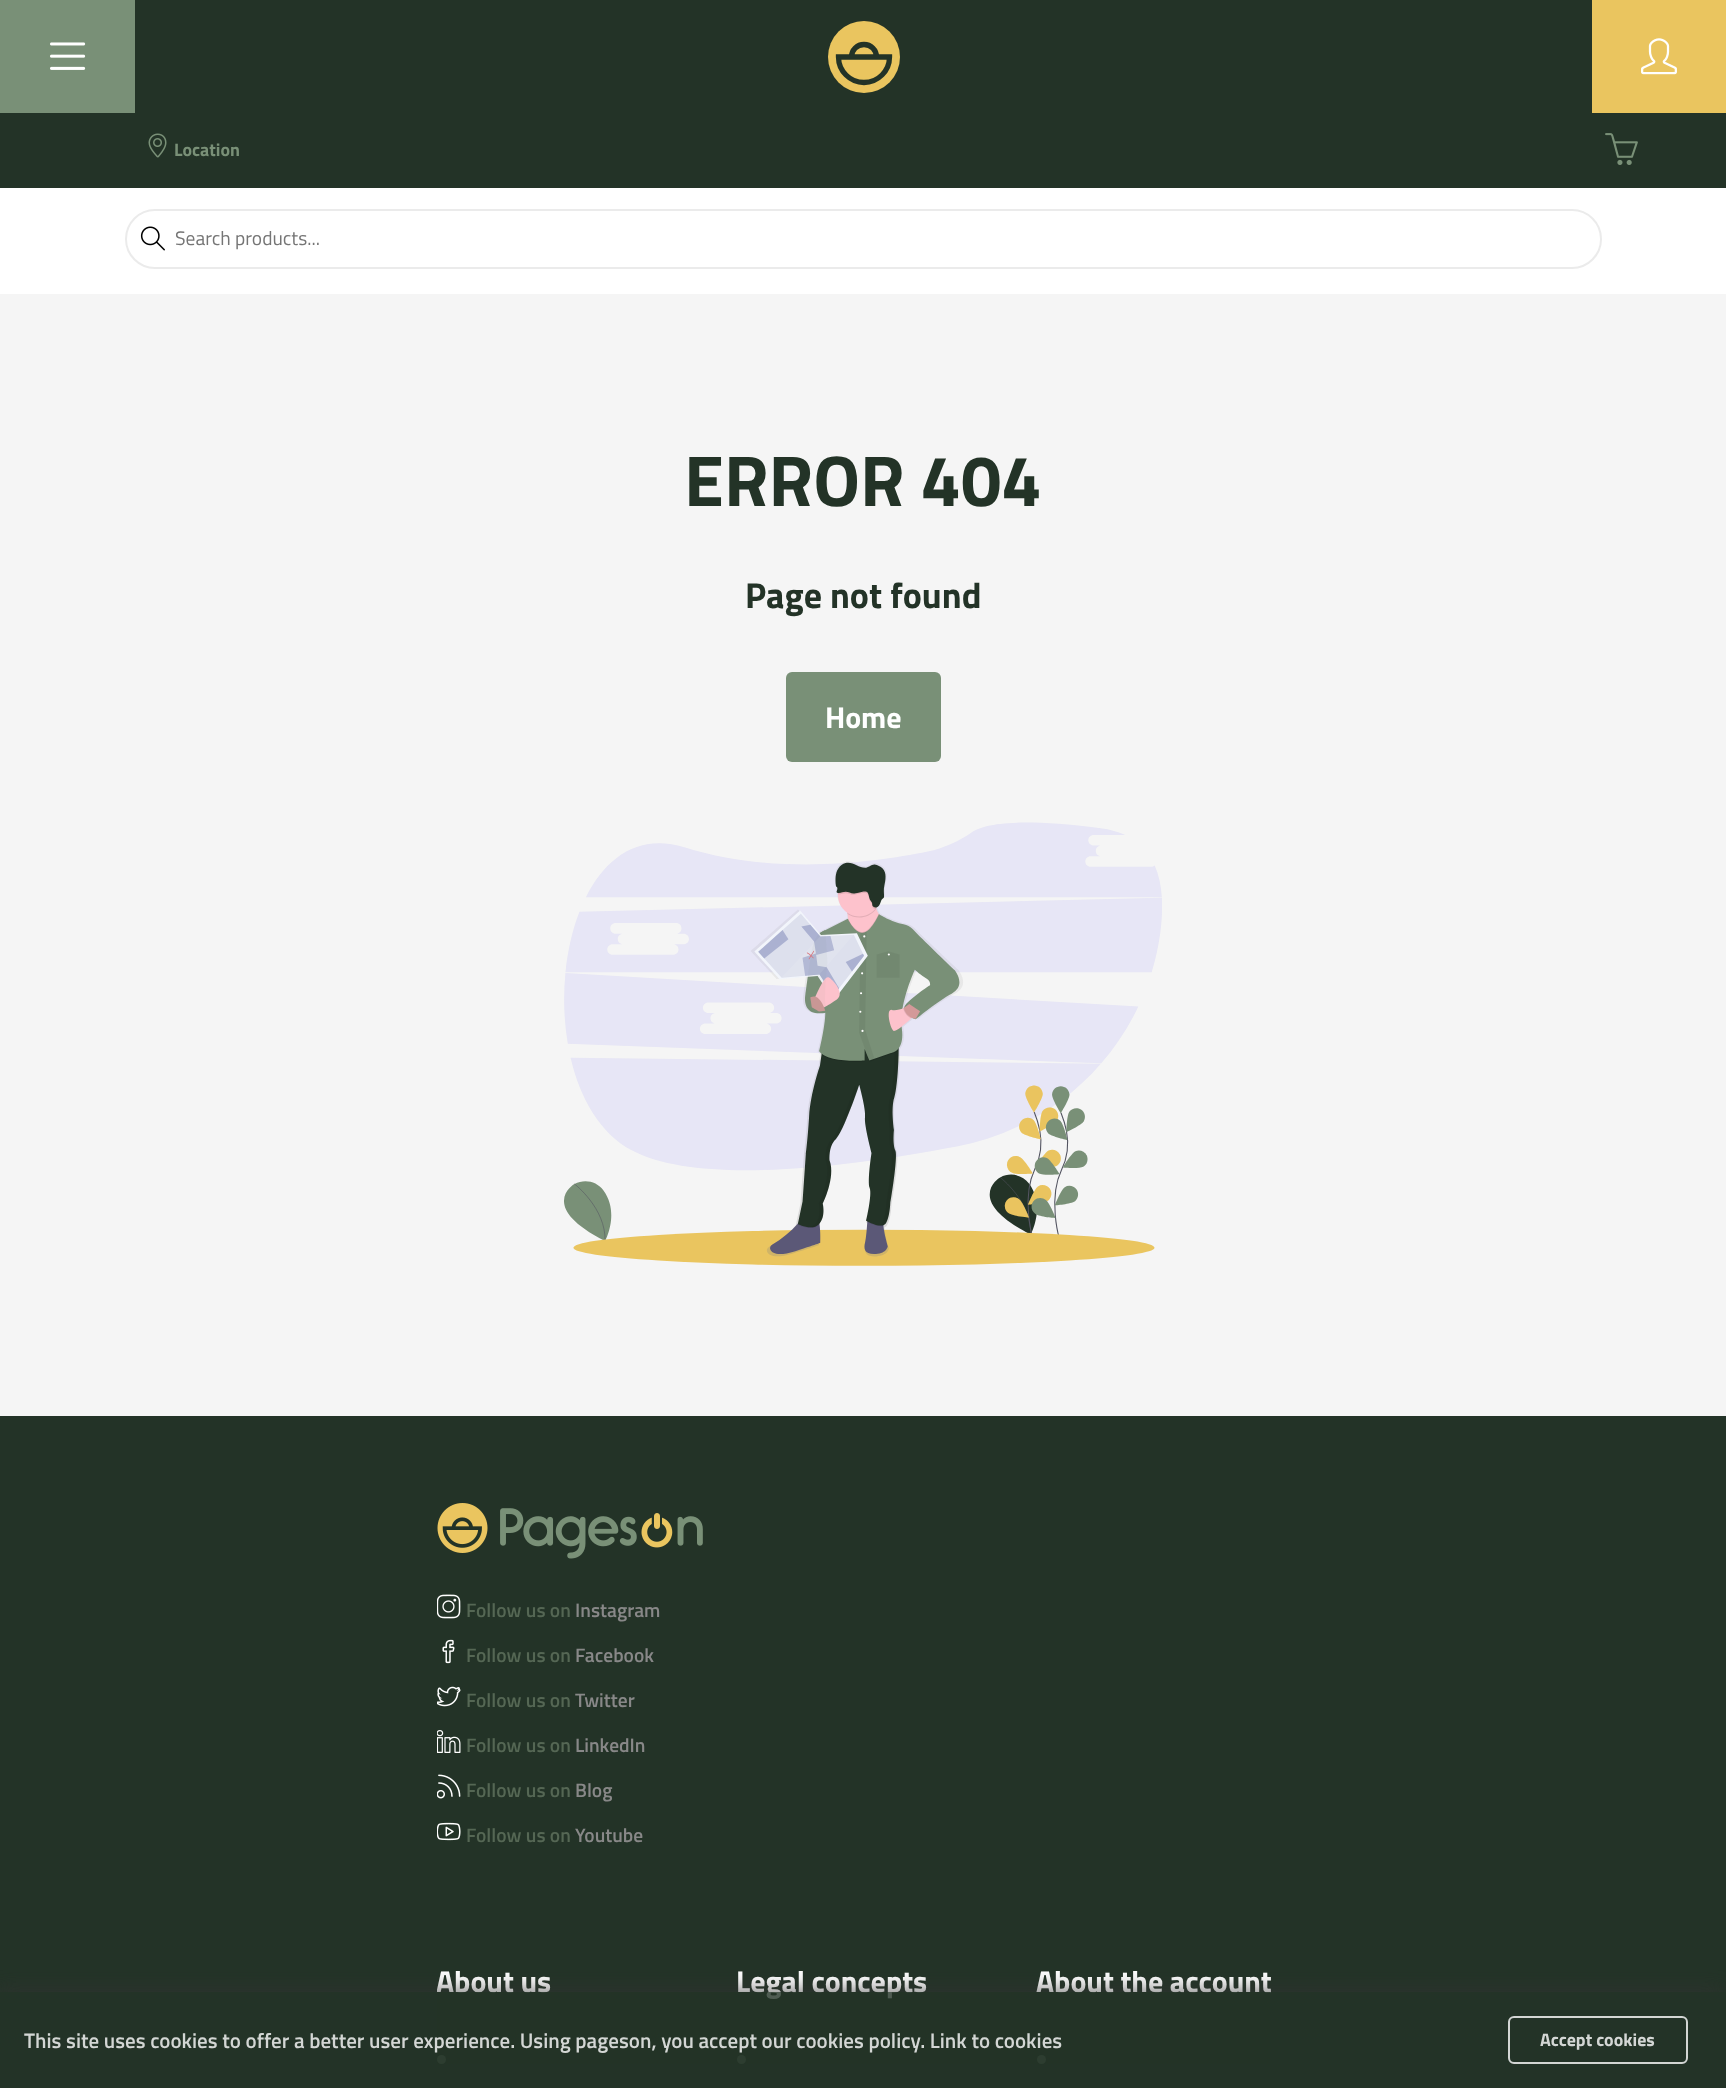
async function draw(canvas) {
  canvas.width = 1726;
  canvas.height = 2088;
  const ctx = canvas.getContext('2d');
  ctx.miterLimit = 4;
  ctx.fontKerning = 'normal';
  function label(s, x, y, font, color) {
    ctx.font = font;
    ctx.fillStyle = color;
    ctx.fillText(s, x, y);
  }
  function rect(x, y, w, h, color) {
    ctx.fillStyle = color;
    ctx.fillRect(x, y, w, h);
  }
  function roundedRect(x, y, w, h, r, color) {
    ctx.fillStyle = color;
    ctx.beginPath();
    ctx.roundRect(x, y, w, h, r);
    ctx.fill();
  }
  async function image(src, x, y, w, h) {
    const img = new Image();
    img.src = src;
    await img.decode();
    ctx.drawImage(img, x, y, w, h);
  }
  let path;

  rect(0, 0, 1726, 2088, '#f5f5f5');
  rect(0, 0, 1726, 188, '#233327');
  await image('assets/img1.png', 148, 133, 19, 25);
  label('Location', 174, 156, 'bold 18px Titillium Web', '#799077');
  await image('assets/img2.png', 1605, 133, 33, 32);
  rect(0, 0, 135, 113, '#799077');
  await image('assets/img3.png', 50, 42, 36, 28);
  ctx.fillStyle = '#eac55f';
  ctx.beginPath();
  ctx.arc(864, 57, 36, 0, 2 * Math.PI);
  ctx.fill();
  path = new Path2D('M864 82.5C878 82.5 889.5 71 889.5 57H838.5C838.5 71 850 82.5 864 82.5ZM864 44.5C871 44.5 876.5 50 876.5 57H851.5C851.5 50 857 44.5 864 44.5Z');
  ctx.strokeStyle = '#233327';
  ctx.lineWidth = 5.3;
  ctx.stroke(path);
  rect(1592, 0, 134, 113, '#eac55f');
  await image('assets/img4.png', 1641, 38, 36, 37);
  rect(0, 188, 1726, 106, '#fff');
  ctx.beginPath();
  ctx.roundRect(126, 210, 1475, 58, 29);
  ctx.strokeStyle = '#ebebeb';
  ctx.lineWidth = 2;
  ctx.stroke();
  await image('assets/img5.png', 140, 226, 25, 25);
  label('Search products...', 175, 245, '19.5px Titillium Web', '#757575');
  label('ERROR 404', 684, 506, 'bold 72px Titillium Web', '#233327');
  label('Page not found', 745, 608, 'bold 36px Titillium Web', '#233327');
  roundedRect(786, 672, 155, 90, 6, '#799077');
  label('Home', 825, 728, 'bold 30px Titillium Web', '#fff');
  await image('assets/img6.png', 564, 822, 598, 444);
  rect(0, 1416, 1726, 672, '#233327');
  await image('assets/img7.png', 437, 1503, 266, 56);
  await image('assets/img8.png', 437, 1594, 24, 25);
  label('Follow us on', 466, 1617, '600 19.5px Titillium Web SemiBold', '#556754');
  label('Instagram', 575, 1617, '600 19.5px Titillium Web SemiBold', '#888');
  await image('assets/img9.png', 442, 1639, 13, 25);
  label('Follow us on', 466, 1662, '600 19.5px Titillium Web SemiBold', '#556754');
  label('Facebook', 575, 1662, '600 19.5px Titillium Web SemiBold', '#888');
  await image('assets/img10.png', 437, 1686, 24, 21);
  label('Follow us on', 466, 1707, '600 19.5px Titillium Web SemiBold', '#556754');
  label('Twitter', 575, 1707, '600 19.5px Titillium Web SemiBold', '#888');
  await image('assets/img11.png', 437, 1730, 24, 23);
  label('Follow us on', 466, 1752, '600 19.5px Titillium Web SemiBold', '#556754');
  label('LinkedIn', 575, 1752, '600 19.5px Titillium Web SemiBold', '#888');
  await image('assets/img12.png', 437, 1774, 24, 25);
  label('Follow us on', 466, 1797, '600 19.5px Titillium Web SemiBold', '#556754');
  label('Blog', 575, 1797, '600 19.5px Titillium Web SemiBold', '#888');
  await image('assets/img13.png', 437, 1822, 24, 19);
  label('Follow us on', 466, 1842, '600 19.5px Titillium Web SemiBold', '#556754');
  label('Youtube', 575, 1842, '600 19.5px Titillium Web SemiBold', '#888');
  ctx.save();
  ctx.beginPath();
  ctx.rect(437, 1416, 855, 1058);
  ctx.clip();
  label('About us', 436, 1992, 'bold 30px Titillium Web', '#fff');
  ctx.restore();
  ctx.fillStyle = '#556754';
  ctx.beginPath();
  ctx.arc(441.5, 2059.5, 4.5, 0, 2 * Math.PI);
  ctx.fill();
  label('Legal concepts', 736, 1992, 'bold 30px Titillium Web', '#fff');
  ctx.fillStyle = '#556754';
  ctx.beginPath();
  ctx.arc(741.5, 2059.5, 4.5, 0, 2 * Math.PI);
  ctx.fill();
  label('About the account', 1036, 1992, 'bold 30px Titillium Web', '#fff');
  ctx.fillStyle = '#556754';
  ctx.beginPath();
  ctx.arc(1041.5, 2059.5, 4.5, 0, 2 * Math.PI);
  ctx.fill();
  ctx.save();
  ctx.beginPath();
  ctx.rect(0, 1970, 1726, 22);
  ctx.clip();
  ctx.fillStyle = '#333333cc';
  ctx.filter = 'blur(11px)';
  ctx.beginPath();
  ctx.rect(-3, 1992, 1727, 96);
  ctx.fill();
  ctx.filter = 'none';
  ctx.restore();
  rect(437, 1992, 833, 72, '#233327cc');
  label('This site uses cookies to offer a better user experience. Using pageson, you accept our cookies policy. Link to cookies', 24, 2048, '600 21px Titillium Web SemiBold', '#d3d6d4');
  ctx.beginPath();
  ctx.roundRect(1509, 2017, 178, 46, 5);
  ctx.strokeStyle = '#d3d6d4';
  ctx.stroke();
  label('Accept cookies', 1540, 2046, 'bold 18px Titillium Web', '#d3d6d4');
}

draw(document.querySelector('canvas'));
